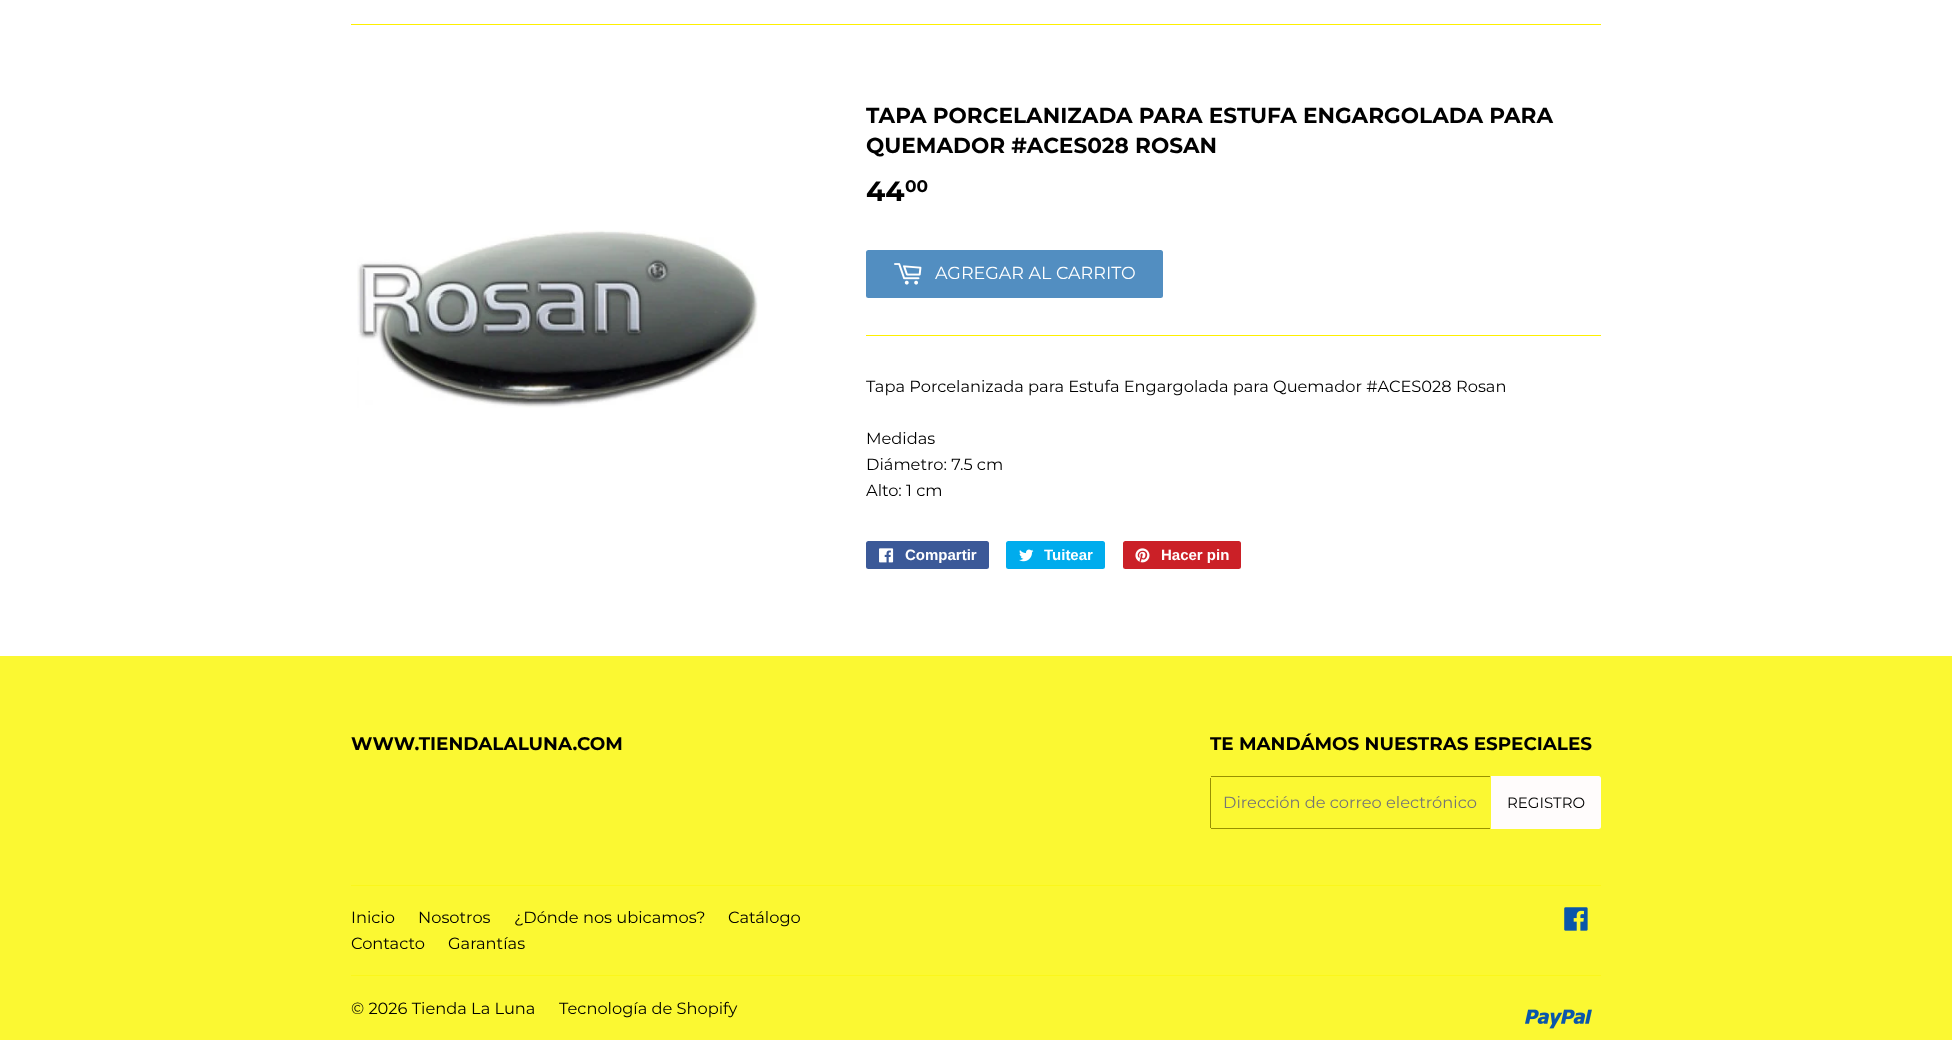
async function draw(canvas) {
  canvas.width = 1952;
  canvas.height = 1040;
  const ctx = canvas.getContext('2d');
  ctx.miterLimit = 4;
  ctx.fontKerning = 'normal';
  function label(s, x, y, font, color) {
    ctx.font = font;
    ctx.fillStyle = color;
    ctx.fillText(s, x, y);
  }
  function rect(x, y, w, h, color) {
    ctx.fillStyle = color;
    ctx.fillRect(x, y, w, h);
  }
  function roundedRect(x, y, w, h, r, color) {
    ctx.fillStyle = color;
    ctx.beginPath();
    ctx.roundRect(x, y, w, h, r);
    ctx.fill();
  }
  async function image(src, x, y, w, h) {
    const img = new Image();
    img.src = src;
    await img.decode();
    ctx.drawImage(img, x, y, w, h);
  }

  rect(0, 0, 1952, 1040, '#fff');
  rect(351, 24, 1250, 1, '#fef000');
  await image('assets/img1.png', 357, 230, 401, 178);
  label('TAPA PORCELANIZADA PARA ESTUFA ENGARGOLADA PARA', 866, 123, 'bold 21.65px Montserrat', '#000');
  label('QUEMADOR #ACES028 ROSAN', 866, 153, 'bold 21.65px Montserrat', '#000');
  label('44', 866, 201, 'bold 28px Montserrat', '#000');
  label('00', 905, 192, 'bold 17px Montserrat', '#000');
  roundedRect(866, 250, 297, 48, 2.5, '#528ec1');
  await image('assets/img2.png', 894, 263, 28, 22);
  label('AGREGAR AL CARRITO', 935, 279, '17.5px Montserrat', '#fff');
  rect(866, 335, 735, 1, '#fef000');
  label('Tapa Porcelanizada para Estufa Engargolada para Quemador #ACES028 Rosan', 866, 392, '16.25px Montserrat', '#000');
  label('Medidas', 866, 444, '16.25px Montserrat', '#000');
  label('Diámetro: 7.5 cm', 866, 470, '16.25px Montserrat', '#000');
  label('Alto: 1 cm', 866, 496, '16.25px Montserrat', '#000');
  roundedRect(866, 541, 123, 28, 2.5, '#3b5998');
  await image('assets/img3.png', 879, 548, 15, 15);
  label('Compartir', 905, 560, 'bold 15px Liberation Sans', '#fff');
  roundedRect(1006, 541, 99, 28, 2.5, '#00aced');
  await image('assets/img4.png', 1019, 549, 15, 13);
  label('Tuitear', 1044, 560, 'bold 15px Liberation Sans', '#fff');
  roundedRect(1123, 541, 118, 28, 2.5, '#cb2027');
  await image('assets/img5.png', 1135, 548, 15, 15);
  label('Hacer pin', 1161, 560, 'bold 15px Liberation Sans', '#fff');
  rect(0, 656, 1952, 384, '#fbf832');
  label('WWW.TIENDALALUNA.COM', 351, 750, 'bold 18.4px Montserrat', '#000');
  label('TE MANDÁMOS NUESTRAS ESPECIALES', 1210, 750, 'bold 18.4px Montserrat', '#000');
  rect(1211, 776, 279, 1, '#989000');
  rect(1211, 828, 279, 1, '#989000');
  rect(1210, 778, 1, 50, '#989000');
  label('Dirección de correo electrónico', 1223, 808, '16.25px Montserrat', '#757575');
  ctx.fillStyle = '#fffcfc';
  ctx.beginPath();
  ctx.roundRect(1491, 776, 110, 53, [0, 2.5, 2.5, 0]);
  ctx.fill();
  label('REGISTRO', 1507, 808, '15px Montserrat', '#000');
  rect(351, 885, 1250, 1, '#fbf719');
  label('Inicio', 351, 923, '16.25px Montserrat', '#000');
  label('Nosotros', 418, 923, '16.25px Montserrat', '#000');
  label('¿Dónde nos ubicamos?', 514, 923, '16.25px Montserrat', '#000');
  label('Catálogo', 728, 923, '16.25px Montserrat', '#000');
  label('Contacto', 351, 949, '16.25px Montserrat', '#000');
  label('Garantías', 448, 949, '16.25px Montserrat', '#000');
  await image('assets/img6.png', 1564, 907, 24, 24);
  rect(351, 975, 1250, 1, '#fbf719');
  label('© 2026 Tienda La Luna', 351, 1014, '16.25px Montserrat', '#000');
  label('Tecnología de Shopify', 559, 1014, '16.25px Montserrat', '#000');
  await image('assets/img7.png', 1525, 1009, 67, 20);
}

draw(document.querySelector('canvas'));
